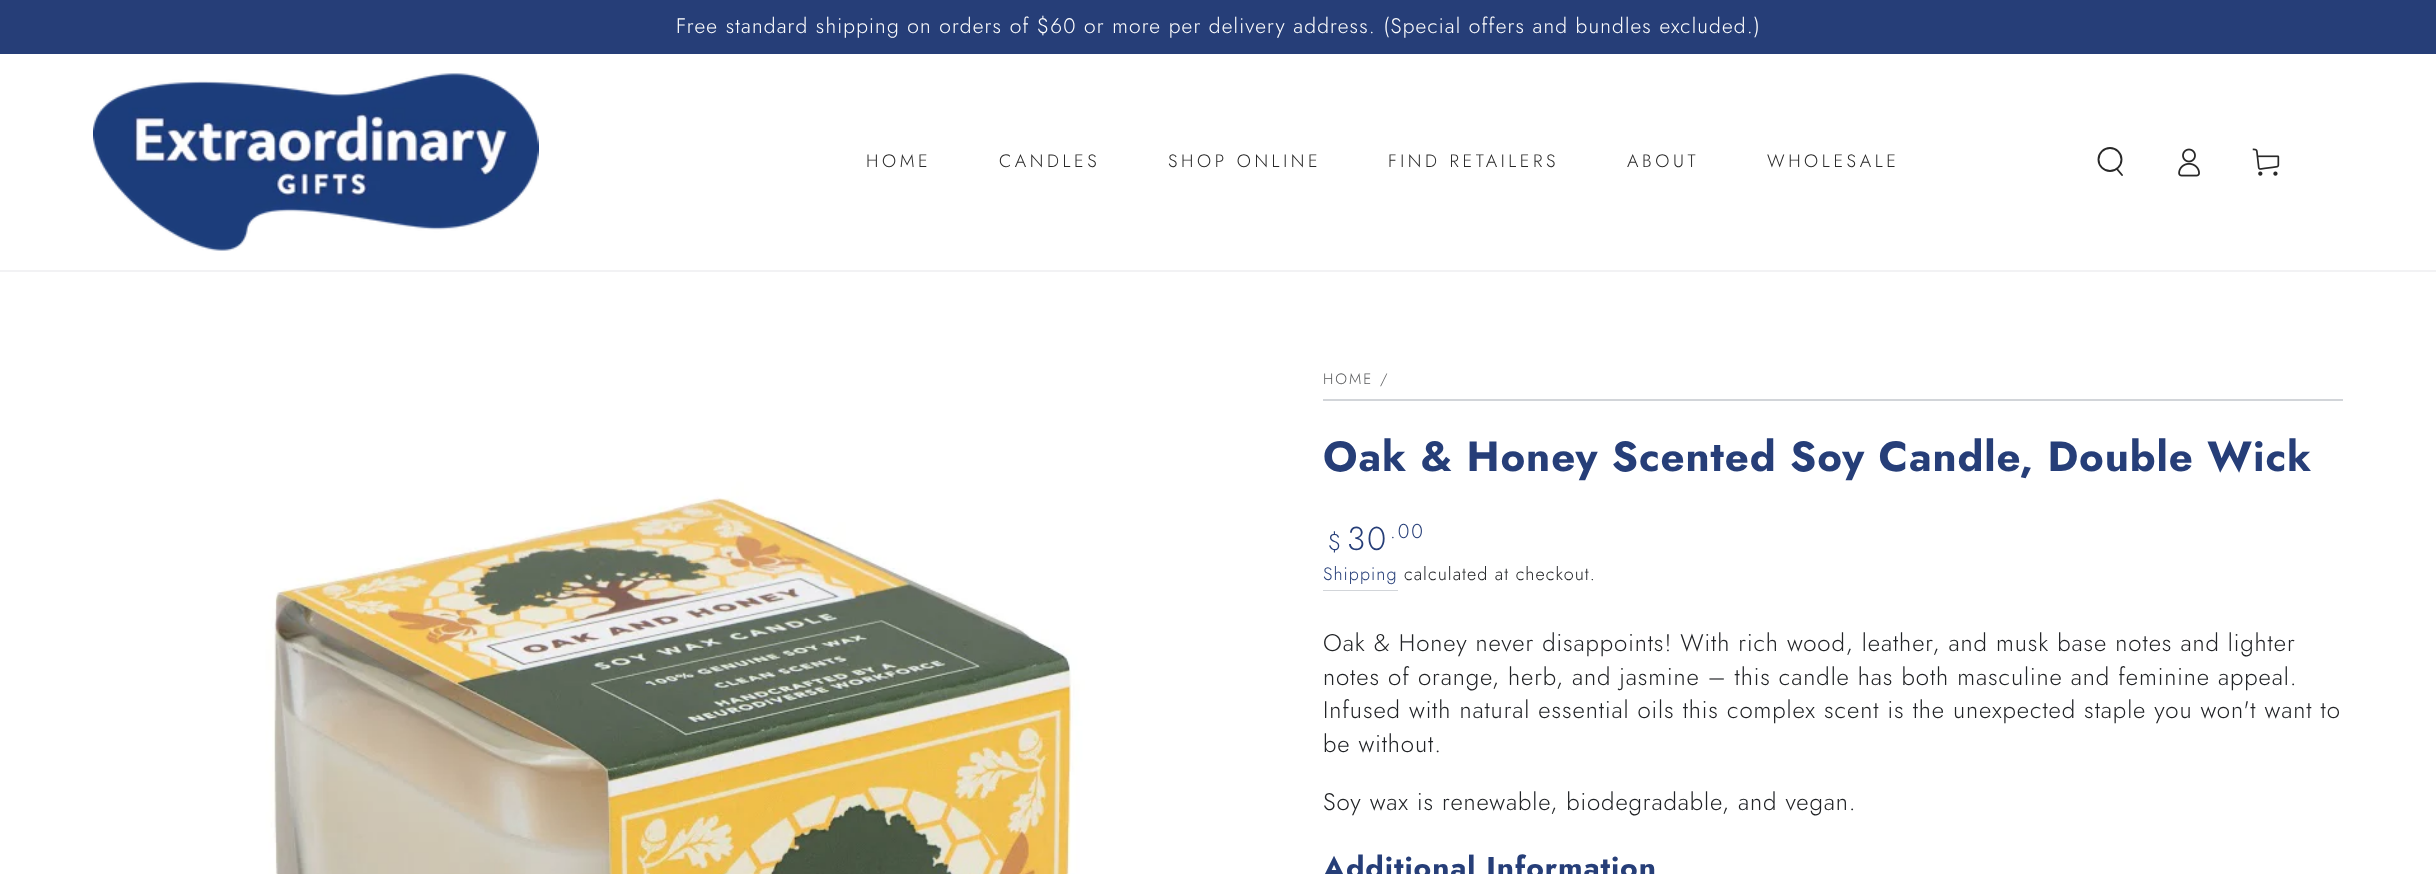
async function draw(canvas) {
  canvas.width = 2436;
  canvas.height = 874;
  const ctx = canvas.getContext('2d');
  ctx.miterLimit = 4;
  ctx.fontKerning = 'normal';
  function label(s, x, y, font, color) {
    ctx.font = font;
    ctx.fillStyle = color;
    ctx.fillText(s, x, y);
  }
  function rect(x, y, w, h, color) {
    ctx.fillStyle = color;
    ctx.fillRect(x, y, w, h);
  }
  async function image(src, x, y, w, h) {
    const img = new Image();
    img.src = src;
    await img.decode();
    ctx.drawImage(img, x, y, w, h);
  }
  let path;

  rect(0, 0, 2436, 874, '#fff');
  rect(0, 0, 2436, 54, '#263e78');
  ctx.letterSpacing = '1.17px';
  label('Free standard shipping on orders of $60 or more per delivery address. (Special offers and bundles excluded.)', 676, 33, '300 21px Jost', '#fff');
  rect(0, 270, 2436, 2, '#f2f2f4');
  await image('assets/img1.png', 93, 73, 446, 178);
  ctx.letterSpacing = '3.6px';
  label('HOME', 866, 167, '300 18px Jost', '#282828');
  label('CANDLES', 999, 167, '300 18px Jost', '#282828');
  label('SHOP ONLINE', 1168, 167, '300 18px Jost', '#282828');
  label('FIND RETAILERS', 1388, 167, '300 18px Jost', '#282828');
  label('ABOUT', 1627, 167, '300 18px Jost', '#282828');
  label('WHOLESALE', 1767, 167, '300 18px Jost', '#282828');
  ctx.beginPath();
  ctx.arc(2110, 159.5, 11.5, 0, 2 * Math.PI);
  ctx.strokeStyle = '#282828';
  ctx.lineWidth = 1.9;
  ctx.stroke();
  path = new Path2D('M2117 169L2122 175');
  ctx.lineCap = 'round';
  ctx.stroke(path);
  await image('assets/img2.png', 2178, 148, 22, 29);
  await image('assets/img3.png', 2252, 148, 28, 28);
  await image('assets/img4.png', 93, 324, 1125, 550);
  rect(1323, 399, 1020, 2, '#d2d5d9');
  ctx.letterSpacing = '2px';
  label('HOME', 1323, 384, '300 15px Jost', '#595a5c');
  label('/', 1380, 384, '300 15px Jost', '#595a5c');
  ctx.letterSpacing = '0.9px';
  label('Oak & Honey Scented Soy Candle, Double Wick', 1323, 471, 'bold 42px Jost', '#263e78');
  ctx.letterSpacing = '2px';
  label('$', 1328, 550, '300 23px Jost', '#263e78');
  label('30', 1347, 550, '300 33px Jost', '#263e78');
  label('.00', 1390, 538, '300 20px Jost', '#263e78');
  ctx.letterSpacing = '1.05px';
  label('Shipping', 1323, 580, '300 18px Jost', '#263e78');
  rect(1323, 590, 75, 1, '#d2d5d9');
  label('calculated at checkout.', 1404, 580, '300 18px Jost', '#212326');
  ctx.letterSpacing = '0.9px';
  label('Oak & Honey never disappoints! With rich wood, leather, and musk base notes and lighter', 1323, 651, '300 24px Jost', '#212326');
  label('notes of orange, herb, and jasmine – this candle has both masculine and feminine appeal.', 1323, 685, '300 24px Jost', '#212326');
  label('Infused with natural essential oils this complex scent is the unexpected staple you won\'t want to', 1323, 718, '300 24px Jost', '#212326');
  label('be without.', 1323, 752, '300 24px Jost', '#212326');
  label('Soy wax is renewable, biodegradable, and vegan.', 1323, 810, '300 24px Jost', '#212326');
  label('Additional Information', 1323, 878, 'bold 30px Jost', '#263e78');
}

draw(document.querySelector('canvas'));
